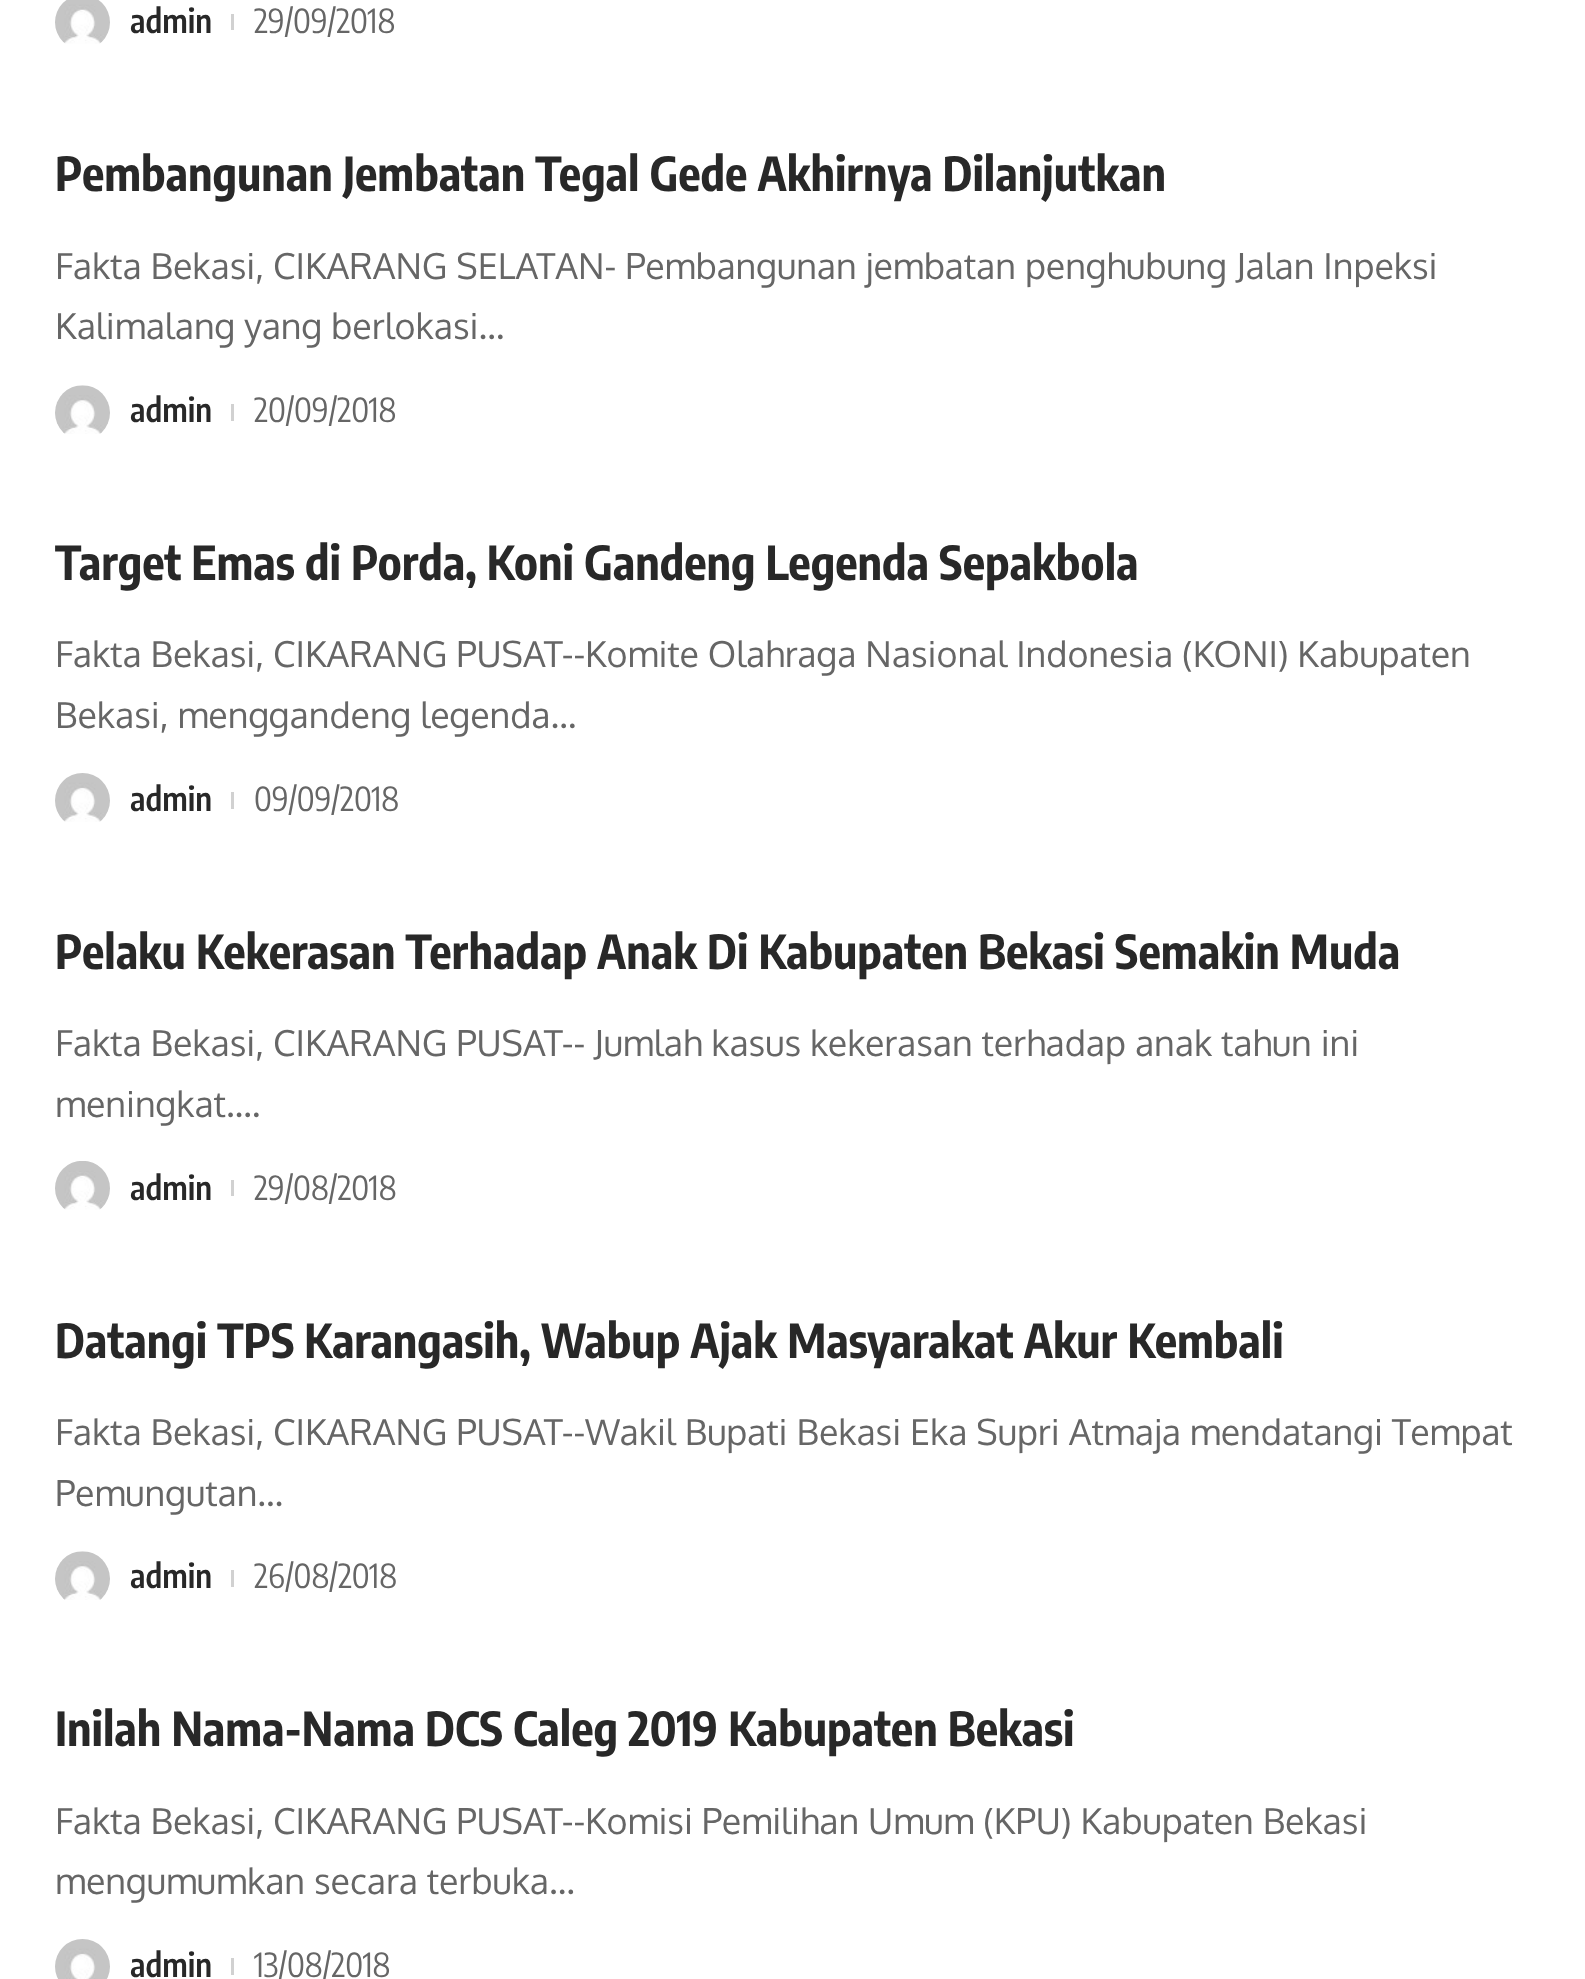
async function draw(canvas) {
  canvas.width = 1585;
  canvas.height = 1979;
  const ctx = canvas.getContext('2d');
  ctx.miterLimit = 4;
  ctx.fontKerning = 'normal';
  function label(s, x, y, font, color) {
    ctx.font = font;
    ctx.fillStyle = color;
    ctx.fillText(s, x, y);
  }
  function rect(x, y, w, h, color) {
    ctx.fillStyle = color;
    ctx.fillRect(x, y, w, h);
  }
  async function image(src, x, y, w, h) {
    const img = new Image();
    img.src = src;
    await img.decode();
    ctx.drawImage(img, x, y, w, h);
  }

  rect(0, 0, 1585, 1979, '#fff');
  await image('assets/img1.png', 55, 0, 55, 44);
  label('admin', 130, 33, '600 33px Encode Sans Condensed', '#282828');
  rect(231, 14, 3, 16, '#d1d1d1');
  label('29/09/2018', 254, 33, '33px Encode Sans Condensed', '#666');
  label('Pembangunan Jembatan Tegal Gede Akhirnya Dilanjutkan', 55, 191, 'bold 46.75px Encode Sans Condensed', '#282828');
  label('Fakta Bekasi, CIKARANG SELATAN- Pembangunan jembatan penghubung Jalan Inpeksi', 55, 279, '35.75px Oxygen', '#666');
  label('Kalimalang yang berlokasi…', 55, 339, '35.75px Oxygen', '#666');
  await image('assets/img2.png', 55, 385, 55, 49);
  label('admin', 130, 422, '600 33px Encode Sans Condensed', '#282828');
  rect(231, 404, 3, 17, '#d1d1d1');
  label('20/09/2018', 254, 422, '33px Encode Sans Condensed', '#666');
  label('Target Emas di Porda, Koni Gandeng Legenda Sepakbola', 55, 580, 'bold 46.75px Encode Sans Condensed', '#282828');
  label('Fakta Bekasi, CIKARANG PUSAT--Komite Olahraga Nasional Indonesia (KONI) Kabupaten', 55, 667, '35.75px Oxygen', '#666');
  label('Bekasi, menggandeng legenda…', 55, 728, '35.75px Oxygen', '#666');
  await image('assets/img3.png', 55, 773, 55, 49);
  label('admin', 130, 811, '600 33px Encode Sans Condensed', '#282828');
  rect(231, 792, 3, 17, '#d1d1d1');
  label('09/09/2018', 254, 811, '33px Encode Sans Condensed', '#666');
  label('Pelaku Kekerasan Terhadap Anak Di Kabupaten Bekasi Semakin Muda', 55, 969, 'bold 46.75px Encode Sans Condensed', '#282828');
  label('Fakta Bekasi, CIKARANG PUSAT-- Jumlah kasus kekerasan terhadap anak tahun ini', 55, 1056, '35.75px Oxygen', '#666');
  label('meningkat.…', 55, 1117, '35.75px Oxygen', '#666');
  await image('assets/img4.png', 55, 1161, 55, 49);
  label('admin', 130, 1200, '600 33px Encode Sans Condensed', '#282828');
  rect(231, 1180, 3, 16, '#d1d1d1');
  label('29/08/2018', 254, 1200, '33px Encode Sans Condensed', '#666');
  label('Datangi TPS Karangasih, Wabup Ajak Masyarakat Akur Kembali', 55, 1358, 'bold 46.75px Encode Sans Condensed', '#282828');
  label('Fakta Bekasi, CIKARANG PUSAT--Wakil Bupati Bekasi Eka Supri Atmaja mendatangi Tempat', 55, 1445, '35.75px Oxygen', '#666');
  label('Pemungutan…', 55, 1506, '35.75px Oxygen', '#666');
  await image('assets/img5.png', 55, 1551, 55, 49);
  label('admin', 130, 1588, '600 33px Encode Sans Condensed', '#282828');
  rect(231, 1570, 3, 17, '#d1d1d1');
  label('26/08/2018', 254, 1588, '33px Encode Sans Condensed', '#666');
  label('Inilah Nama-Nama DCS Caleg 2019 Kabupaten Bekasi', 55, 1746, 'bold 46.75px Encode Sans Condensed', '#282828');
  label('Fakta Bekasi, CIKARANG PUSAT--Komisi Pemilihan Umum (KPU) Kabupaten Bekasi', 55, 1834, '35.75px Oxygen', '#666');
  label('mengumumkan secara terbuka…', 55, 1894, '35.75px Oxygen', '#666');
  await image('assets/img6.png', 55, 1939, 55, 40);
  label('admin', 130, 1977, '600 33px Encode Sans Condensed', '#282828');
  rect(231, 1958, 3, 17, '#d1d1d1');
  label('13/08/2018', 254, 1977, '33px Encode Sans Condensed', '#666');
}

draw(document.querySelector('canvas'));
